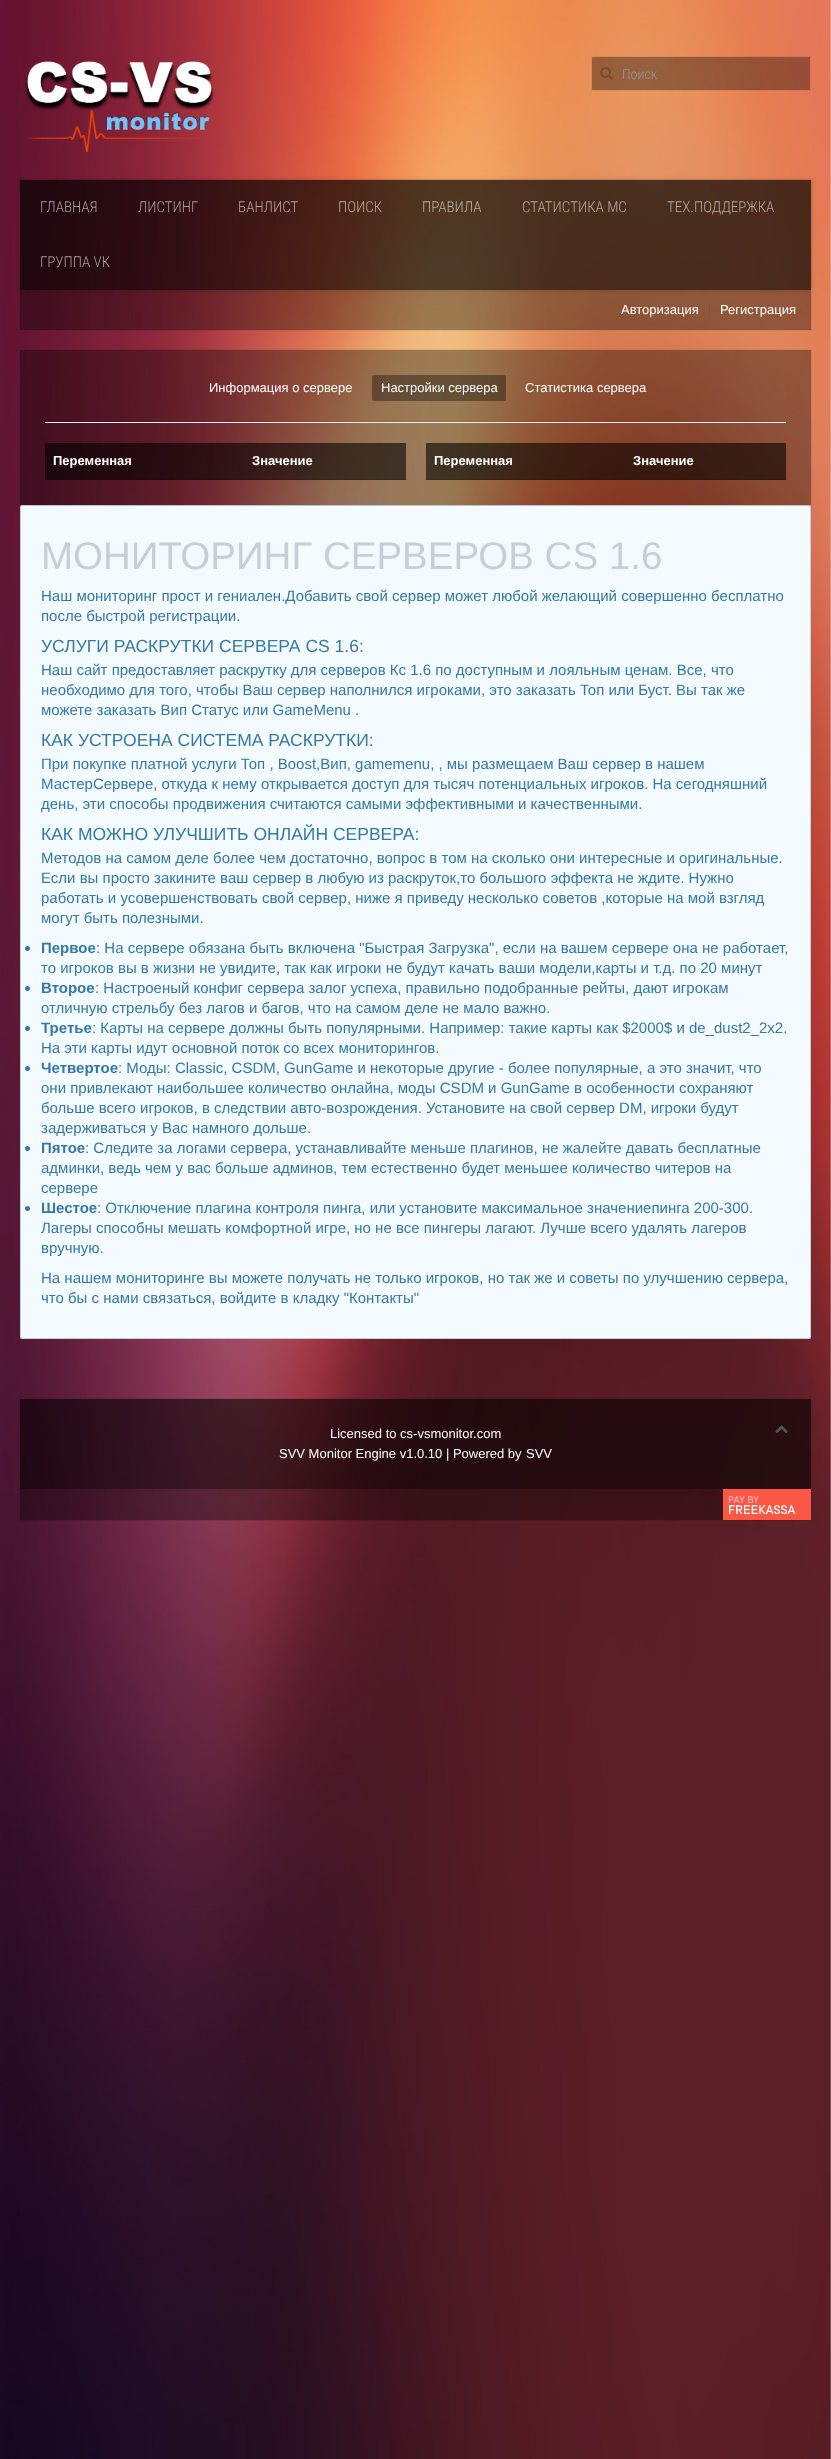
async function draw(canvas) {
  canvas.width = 831;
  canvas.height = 2459;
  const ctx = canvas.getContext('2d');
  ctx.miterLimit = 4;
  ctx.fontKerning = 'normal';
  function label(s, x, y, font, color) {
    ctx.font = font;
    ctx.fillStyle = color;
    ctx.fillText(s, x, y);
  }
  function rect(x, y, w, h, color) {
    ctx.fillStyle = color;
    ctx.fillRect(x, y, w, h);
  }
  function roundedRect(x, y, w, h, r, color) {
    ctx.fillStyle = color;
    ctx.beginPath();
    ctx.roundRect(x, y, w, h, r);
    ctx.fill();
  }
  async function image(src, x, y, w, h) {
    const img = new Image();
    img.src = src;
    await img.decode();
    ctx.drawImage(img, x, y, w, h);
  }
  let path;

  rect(0, 0, 831, 2459, '#fff');
  await image('assets/img1.png', 0, 0, 831, 2459);
  await image('assets/img2.png', 23, 61, 192, 92);
  ctx.fillStyle = '#00000059';
  ctx.beginPath();
  ctx.roundRect(592, 57, 218, 33, [1, 0, 0, 1]);
  ctx.fill();
  ctx.strokeStyle = '#0000000f';
  ctx.strokeRect(591.5, 56.5, 219, 34);
  await image('assets/img3.png', 600, 67, 13, 13);
  label('Поиск', 622, 79, '300 14px Roboto Condensed', '#92969a');
  ctx.strokeRect(19.5, 179.5, 792, 151);
  rect(20, 180, 791, 150, '#00000059');
  ctx.save();
  path = new Path2D('M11 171H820V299H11ZM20 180H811V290H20Z');
  ctx.clip(path, 'evenodd');
  ctx.fillStyle = '#00000026';
  ctx.filter = 'blur(2.5px)';
  ctx.beginPath();
  ctx.rect(20, 180, 791, 110);
  ctx.fill();
  ctx.filter = 'none';
  ctx.restore();
  rect(20, 180, 791, 110, '#00000080');
  label('ГЛАВНАЯ', 40, 212, '300 15px Roboto Condensed', '#a89ca0');
  label('ЛИСТИНГ', 138, 212, '300 15px Roboto Condensed', '#a89ca0');
  label('БАНЛИСТ', 238, 212, '300 15px Roboto Condensed', '#b3a3a2');
  label('ПОИСК', 338, 212, '300 15px Roboto Condensed', '#b7a9a3');
  label('ПРАВИЛА', 422, 212, '300 15px Roboto Condensed', '#b9afa6');
  label('СТАТИСТИКА МС', 522, 212, '300 15px Roboto Condensed', '#b7a9a3');
  label('ТЕХ.ПОДДЕРЖКА', 667, 212, '300 15px Roboto Condensed', '#b7a9a3');
  label('ГРУППА VК', 40, 267, '300 15px Roboto Condensed', '#a89ca0');
  label('Авторизация', 621, 314, '13px Liberation Sans', '#fff');
  rect(709, 304, 1, 10, '#865137');
  label('Регистрация', 720, 314, '13px Liberation Sans', '#fff');
  roundedRect(20, 505, 791, 834, 2, '#f4fbff');
  ctx.beginPath();
  ctx.roundRect(20.5, 505.5, 790, 833, 1.5);
  ctx.strokeStyle = '#4b74904d';
  ctx.stroke();
  ctx.strokeStyle = '#0000000f';
  ctx.strokeRect(19.5, 349.5, 792, 156);
  rect(20, 350, 791, 155, '#00000059');
  label('Информация о сервере', 209, 392, '13px Liberation Sans', '#fff');
  roundedRect(372, 375, 134, 26, 2, '#00000059');
  label('Настройки сервера', 381, 392, '13px Liberation Sans', '#fff');
  label('Статистика сервера', 525, 392, '13px Liberation Sans', '#fff');
  rect(45, 421, 741, 1, '#00000012');
  rect(45, 422, 741, 1, '#f0f1f3');
  rect(45, 443, 361, 37, '#00000059');
  rect(45, 443, 199, 37, '#00000059');
  rect(244, 443, 162, 37, '#00000059');
  rect(244, 479, 162, 1, '#00000012');
  rect(136, 479, 109, 1, '#00000012');
  label('Переменная', 53, 465, 'bold 13px Liberation Sans', '#fff');
  label('Значение', 252, 465, 'bold 13px Liberation Sans', '#fff');
  rect(426, 443, 360, 37, '#00000059');
  rect(426, 443, 199, 37, '#00000059');
  rect(625, 443, 161, 37, '#00000059');
  rect(624, 479, 163, 1, '#00000012');
  rect(425, 479, 200, 1, '#00000012');
  label('Переменная', 434, 465, 'bold 13px Liberation Sans', '#fff');
  label('Значение', 633, 465, 'bold 13px Liberation Sans', '#fff');
  label('МОНИТОРИНГ СЕРВЕРОВ CS 1.6', 41, 569, '38.5px Liberation Sans', '#c9ced6');
  label('Наш мониторинг прост и гениален.Добавить свой сервер может любой желающий совершенно бесплатно', 41, 601, '15px Liberation Sans', '#3578a6');
  label('после быстрой регистрации.', 41, 621, '15px Liberation Sans', '#3578a6');
  label('УСЛУГИ РАСКРУТКИ СЕРВЕРА CS 1.6:', 41, 652, '17.5px Liberation Sans', '#3578a6');
  label('Наш сайт предоставляет раскрутку для серверов Кс 1.6 по доступным и лояльным ценам. Все, что', 41, 675, '15px Liberation Sans', '#3578a6');
  label('необходимо для того, чтобы Ваш сервер наполнился игроками, это заказать Топ или Буст. Вы так же', 41, 695, '15px Liberation Sans', '#3578a6');
  label('можете заказать Вип Статус или GameMenu .', 41, 715, '15px Liberation Sans', '#3578a6');
  label('КАК УСТРОЕНА СИСТЕМА РАСКРУТКИ:', 41, 746, '17.5px Liberation Sans', '#3578a6');
  label('При покупке платной услуги Топ , Boost,Вип, gamemenu, , мы размещаем Ваш сервер в нашем', 41, 769, '15px Liberation Sans', '#3578a6');
  label('МастерСервере, откуда к нему открывается доступ для тысяч потенциальных игроков. На сегодняшний', 41, 789, '15px Liberation Sans', '#3578a6');
  label('день, эти способы продвижения считаются самыми эффективными и качественными.', 41, 809, '15px Liberation Sans', '#3578a6');
  label('КАК МОЖНО УЛУЧШИТЬ ОНЛАЙН СЕРВЕРА:', 41, 840, '17.5px Liberation Sans', '#3578a6');
  label('Методов на самом деле более чем достаточно, вопрос в том на сколько они интересные и оригинальные.', 41, 863, '15px Liberation Sans', '#3578a6');
  label('Если вы просто закините ваш сервер в любую из раскруток,то большого эффекта не ждите. Нужно', 41, 883, '15px Liberation Sans', '#3578a6');
  label('работать и усовершенствовать свой сервер, ниже я приведу несколько советов ,которые на мой взгляд', 41, 903, '15px Liberation Sans', '#3578a6');
  label('могут быть полезными.', 41, 923, '15px Liberation Sans', '#3578a6');
  ctx.beginPath();
  ctx.arc(27.5, 948.5, 2.5, 0, 2 * Math.PI);
  ctx.fill();
  label('Первое', 41, 953, 'bold 15px Liberation Sans', '#3578a6');
  label(': На сервере обязана быть включена "Быстрая Загрузка", если на вашем сервере она не работает,', 96, 953, '15px Liberation Sans', '#3578a6');
  label('то игроков вы в жизни не увидите, так как игроки не будут качать ваши модели,карты и т.д. по 20 минут', 41, 973, '15px Liberation Sans', '#3578a6');
  ctx.beginPath();
  ctx.arc(27.5, 988.5, 2.5, 0, 2 * Math.PI);
  ctx.fill();
  label('Второе', 41, 993, 'bold 15px Liberation Sans', '#3578a6');
  label(': Настроеный конфиг сервера залог успеха, правильно подобранные рейты, дают игрокам', 95, 993, '15px Liberation Sans', '#3578a6');
  label('отличную стрельбу без лагов и багов, что на самом деле не мало важно.', 41, 1013, '15px Liberation Sans', '#3578a6');
  ctx.beginPath();
  ctx.arc(27.5, 1028.5, 2.5, 0, 2 * Math.PI);
  ctx.fill();
  label('Третье', 41, 1033, 'bold 15px Liberation Sans', '#3578a6');
  label(': Карты на сервере должны быть популярными. Например: такие карты как $2000$ и de_dust2_2x2.', 92, 1033, '15px Liberation Sans', '#3578a6');
  label('На эти карты идут основной поток со всех мониторингов.', 41, 1053, '15px Liberation Sans', '#3578a6');
  ctx.beginPath();
  ctx.arc(27.5, 1068.5, 2.5, 0, 2 * Math.PI);
  ctx.fill();
  label('Четвертое', 41, 1073, 'bold 15px Liberation Sans', '#3578a6');
  label(': Моды: Classic, CSDM, GunGame и некоторые другие - более популярные, а это значит, что', 118, 1073, '15px Liberation Sans', '#3578a6');
  label('они привлекают наибольшее количество онлайна, моды CSDM и GunGame в особенности сохраняют', 41, 1093, '15px Liberation Sans', '#3578a6');
  label('больше всего игроков, в следствии авто-возрождения. Установите на свой сервер DM, игроки будут', 41, 1113, '15px Liberation Sans', '#3578a6');
  label('задерживаться у Вас намного дольше.', 41, 1133, '15px Liberation Sans', '#3578a6');
  ctx.beginPath();
  ctx.arc(27.5, 1148.5, 2.5, 0, 2 * Math.PI);
  ctx.fill();
  label('Пятое', 41, 1153, 'bold 15px Liberation Sans', '#3578a6');
  label(': Следите за логами сервера, устанавливайте меньше плагинов, не жалейте давать бесплатные', 85, 1153, '15px Liberation Sans', '#3578a6');
  label('админки, ведь чем у вас больше админов, тем естественно будет меньшее количество читеров на', 41, 1173, '15px Liberation Sans', '#3578a6');
  label('сервере', 41, 1193, '15px Liberation Sans', '#3578a6');
  ctx.beginPath();
  ctx.arc(27.5, 1208.5, 2.5, 0, 2 * Math.PI);
  ctx.fill();
  label('Шестое', 41, 1213, 'bold 15px Liberation Sans', '#3578a6');
  label(': Отключение плагина контроля пинга, или установите максимальное значениепинга 200-300.', 97, 1213, '15px Liberation Sans', '#3578a6');
  label('Лагеры способны мешать комфортной игре, но не все пингеры лагают. Лучше всего удалять лагеров', 41, 1233, '15px Liberation Sans', '#3578a6');
  label('вручную.', 41, 1253, '15px Liberation Sans', '#3578a6');
  label('На нашем мониторинге вы можете получать не только игроков, но так же и советы по улучшению сервера,', 41, 1283, '15px Liberation Sans', '#3578a6');
  label('что бы с нами связаться, войдите в кладку "Контакты"', 41, 1303, '15px Liberation Sans', '#3578a6');
  ctx.strokeRect(19.5, 1398.5, 792, 122);
  rect(20, 1399, 791, 121, '#00000059');
  rect(20, 1399, 791, 90, '#00000059');
  label('Licensed to cs-vsmonitor.com', 330, 1438, '13px Liberation Sans', '#fff');
  await image('assets/img4.png', 775, 1425, 13, 8);
  label('SVV Monitor Engine v1.0.10 | Powered by', 279, 1458, '13px Liberation Sans', '#fff');
  label('SVV', 526, 1458, '13px Liberation Sans', '#fff');
  await image('assets/img5.png', 723, 1489, 88, 31);
}

draw(document.querySelector('canvas'));
